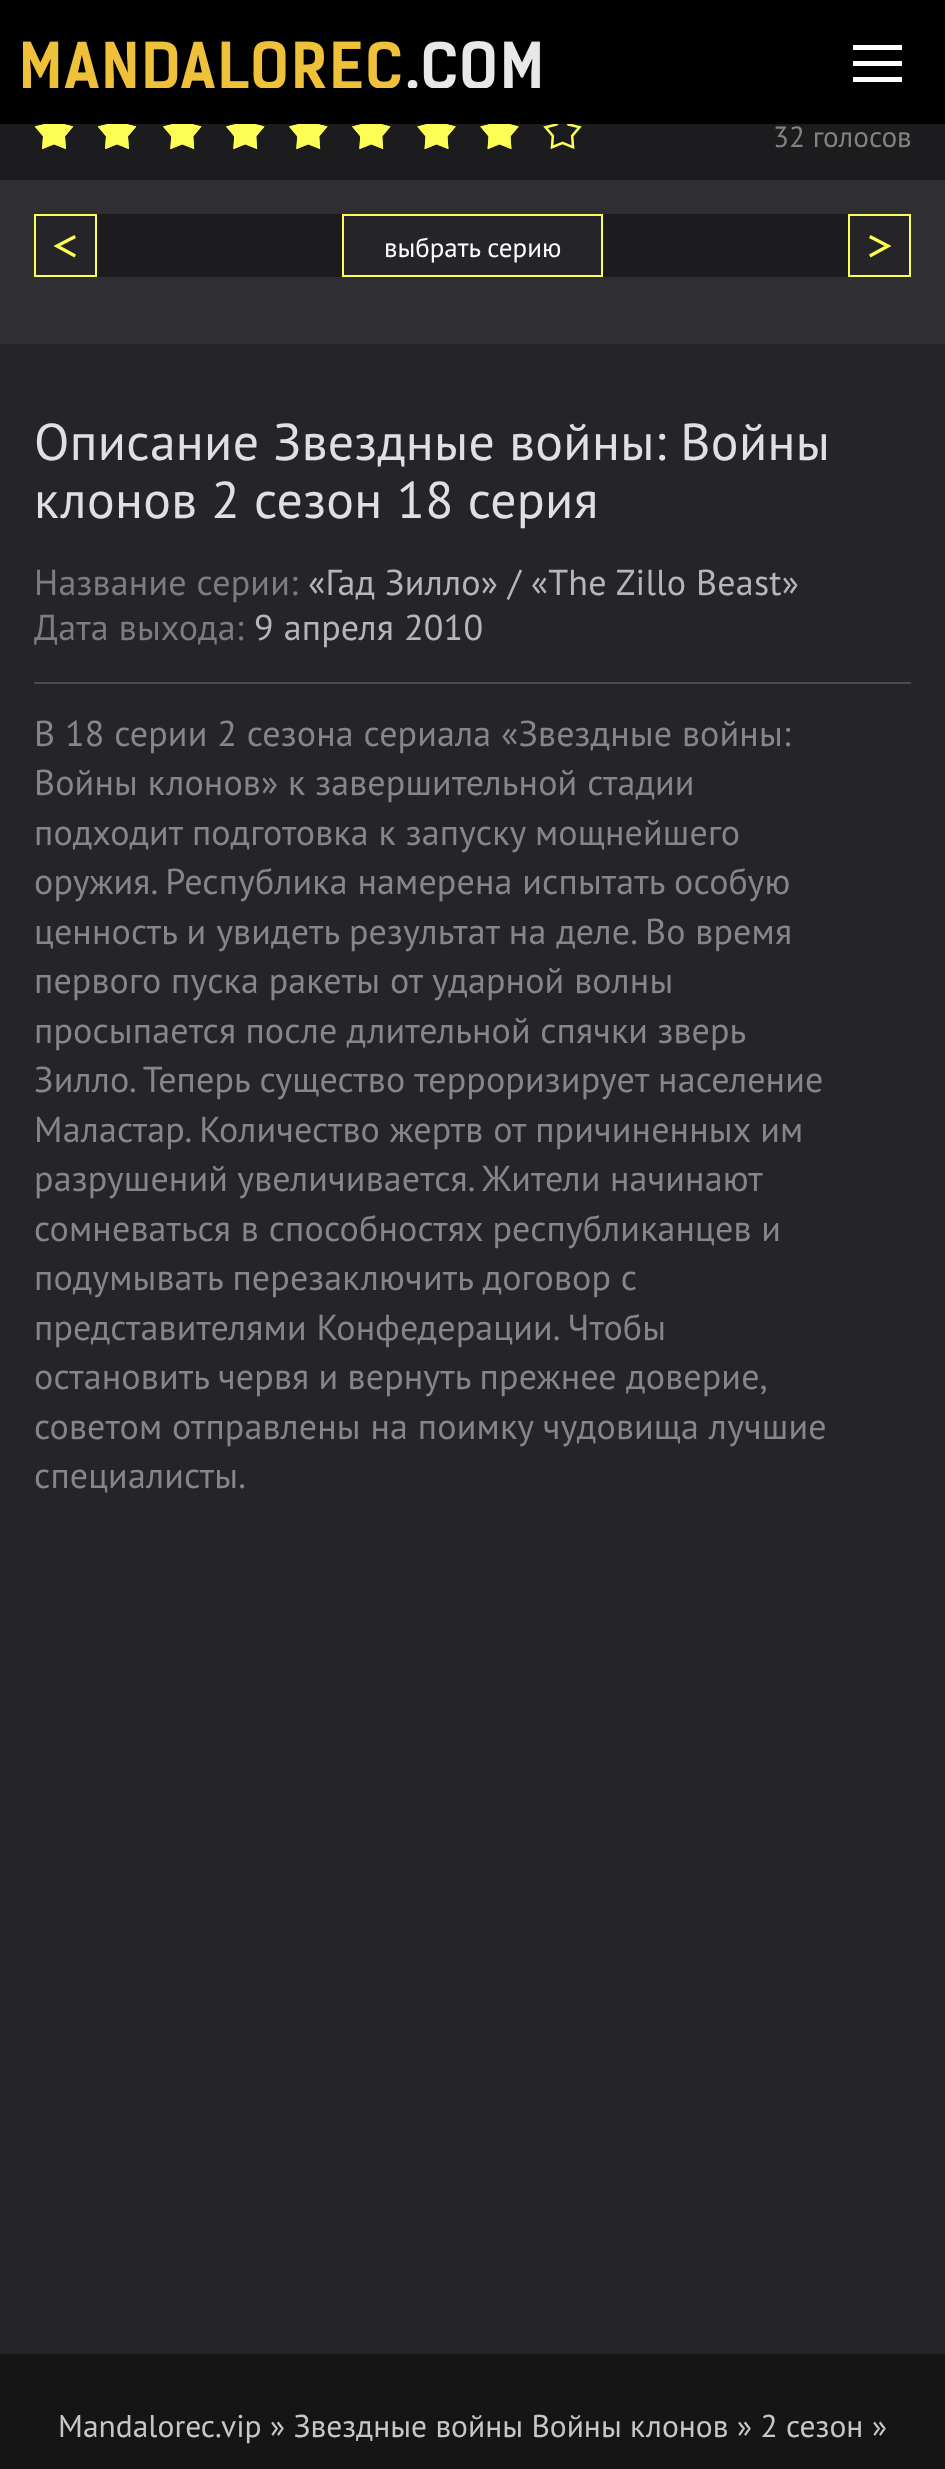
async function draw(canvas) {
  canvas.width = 945;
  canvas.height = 2469;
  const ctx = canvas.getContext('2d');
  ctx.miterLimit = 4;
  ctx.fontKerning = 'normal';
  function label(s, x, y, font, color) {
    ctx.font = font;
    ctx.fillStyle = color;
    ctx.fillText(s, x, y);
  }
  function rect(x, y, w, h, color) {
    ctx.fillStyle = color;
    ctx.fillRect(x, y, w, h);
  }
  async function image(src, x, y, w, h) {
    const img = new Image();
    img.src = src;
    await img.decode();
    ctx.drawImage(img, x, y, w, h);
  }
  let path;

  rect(0, 0, 945, 2469, '#252529');
  rect(0, 0, 945, 124, '#000');
  await image('assets/img1.png', 23, 41, 517, 47);
  rect(853, 45, 49, 5, '#fff');
  rect(853, 61, 49, 5, '#fff');
  rect(853, 77, 49, 5, '#fff');
  rect(0, 180, 945, 164, '#2f2f33');
  rect(0, 124, 945, 56, '#1c1c1f');
  await image('assets/img2.png', 34, 124, 40, 26);
  await image('assets/img2.png', 97, 124, 40, 26);
  await image('assets/img3.png', 163, 124, 39, 26);
  await image('assets/img3.png', 226, 124, 39, 26);
  await image('assets/img3.png', 289, 124, 39, 26);
  await image('assets/img3.png', 352, 124, 39, 26);
  await image('assets/img4.png', 417, 124, 39, 26);
  await image('assets/img4.png', 480, 124, 39, 26);
  await image('assets/img5.png', 543, 124, 39, 25);
  label('32 голосов', 773, 147, '29.25px PT Sans', '#828282');
  rect(97, 214, 751, 63, '#1c1c1f');
  ctx.fillStyle = '#252529';
  ctx.beginPath();
  ctx.rect(35, 215, 61, 61);
  ctx.fill();
  ctx.strokeStyle = '#fdfe54';
  ctx.lineWidth = 2;
  ctx.stroke();
  ctx.fillStyle = '#fdfe54';
  path = new Path2D('M53.5 246L74.5 235L76 238L60.5 246L76 254.5L74.5 257.5Z');
  ctx.fill(path);
  ctx.fillStyle = '#252529';
  ctx.beginPath();
  ctx.rect(343, 215, 259, 61);
  ctx.fill();
  ctx.stroke();
  label('выбрать серию', 384, 257, '27px PT Sans', '#fff');
  ctx.fillStyle = '#252529';
  ctx.beginPath();
  ctx.rect(849, 215, 61, 61);
  ctx.fill();
  ctx.stroke();
  ctx.fillStyle = '#fdfe54';
  path = new Path2D('M891.5 246L870.5 257.5L869 254.5L884.5 246L869 238L870.5 235Z');
  ctx.fill(path);
  ctx.letterSpacing = '0.3px';
  label('Описание Звездные войны: Войны', 34, 460, '51.75px PT Sans', '#e0e0e1');
  label('клонов 2 сезон 18 серия', 34, 518, '51.75px PT Sans', '#e0e0e1');
  rect(34, 682, 877, 2, '#4b4b4e');
  ctx.letterSpacing = '0.2px';
  label('Название серии:', 34, 595, '36px PT Sans', '#7c7d7f');
  label('«Гад Зилло» / «The Zillo Beast»', 308, 595, '36px PT Sans', '#b6b6b6');
  label('Дата выхода:', 34, 640, '36px PT Sans', '#7c7d7f');
  label('9 апреля 2010', 254, 640, '36px PT Sans', '#b6b6b6');
  ctx.letterSpacing = '0.15px';
  label('В 18 серии 2 сезона сериала «Звездные войны:', 34, 746, '36px PT Sans', '#868688');
  label('Войны клонов» к завершительной стадии', 34, 795, '36px PT Sans', '#868688');
  label('подходит подготовка к запуску мощнейшего', 34, 845, '36px PT Sans', '#868688');
  label('оружия. Республика намерена испытать особую', 34, 894, '36px PT Sans', '#868688');
  label('ценность и увидеть результат на деле. Во время', 34, 944, '36px PT Sans', '#868688');
  label('первого пуска ракеты от ударной волны', 34, 993, '36px PT Sans', '#868688');
  ctx.wordSpacing = '-0.5px';
  label('просыпается после длительной спячки зверь', 34, 1043, '36px PT Sans', '#868688');
  ctx.wordSpacing = '0px';
  label('Зилло. Теперь существо терроризирует население', 34, 1092, '36px PT Sans', '#868688');
  label('Маластар. Количество жертв от причиненных им', 34, 1142, '36px PT Sans', '#868688');
  ctx.wordSpacing = '-0.5px';
  label('разрушений увеличивается. Жители начинают', 34, 1191, '36px PT Sans', '#868688');
  ctx.wordSpacing = '0px';
  label('сомневаться в способностях республиканцев и', 34, 1241, '36px PT Sans', '#868688');
  label('подумывать перезаключить договор с', 34, 1290, '36px PT Sans', '#868688');
  label('представителями Конфедерации. Чтобы', 34, 1340, '36px PT Sans', '#868688');
  ctx.wordSpacing = '-0.5px';
  label('остановить червя и вернуть прежнее доверие,', 34, 1389, '36px PT Sans', '#868688');
  ctx.wordSpacing = '0px';
  label('советом отправлены на поимку чудовища лучшие', 34, 1439, '36px PT Sans', '#868688');
  label('специалисты.', 34, 1488, '36px PT Sans', '#868688');
  rect(0, 2354, 945, 115, '#151515');
  ctx.letterSpacing = '0px';
  label('Mandalorec.vip', 58, 2437, '31.5px PT Sans', '#c7c7c7');
  label('» Звездные войны Войны клонов', 270, 2437, '31.5px PT Sans', '#c7c7c7');
  label('» 2 сезон', 737, 2437, '31.5px PT Sans', '#c7c7c7');
  label('»', 872, 2437, '31.5px PT Sans', '#c7c7c7');
}

draw(document.querySelector('canvas'));
